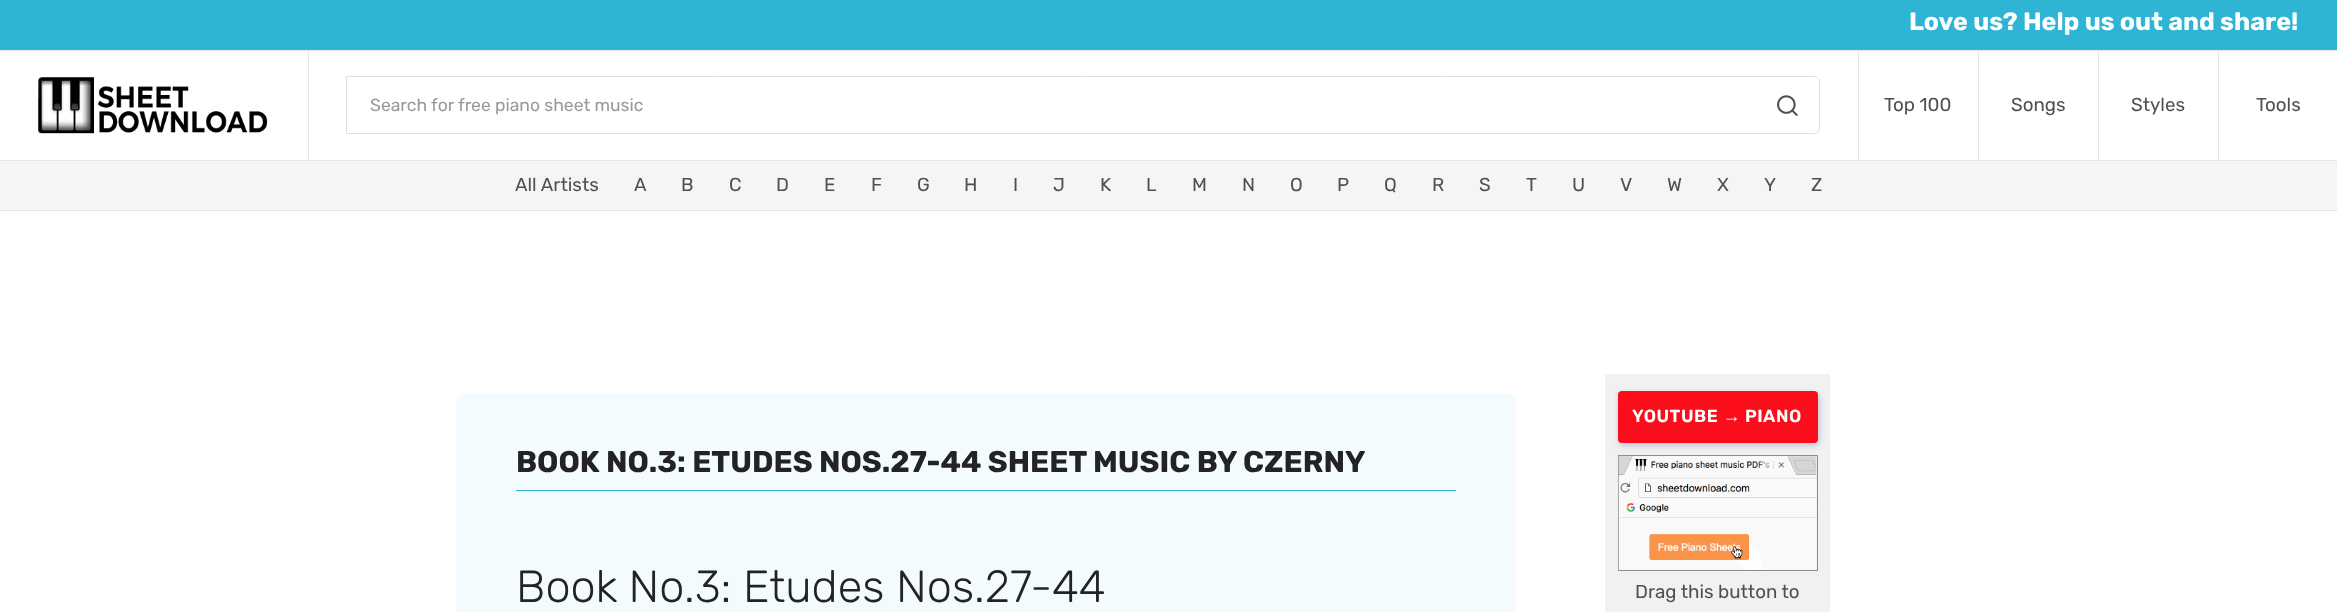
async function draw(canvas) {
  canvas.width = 2337;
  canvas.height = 612;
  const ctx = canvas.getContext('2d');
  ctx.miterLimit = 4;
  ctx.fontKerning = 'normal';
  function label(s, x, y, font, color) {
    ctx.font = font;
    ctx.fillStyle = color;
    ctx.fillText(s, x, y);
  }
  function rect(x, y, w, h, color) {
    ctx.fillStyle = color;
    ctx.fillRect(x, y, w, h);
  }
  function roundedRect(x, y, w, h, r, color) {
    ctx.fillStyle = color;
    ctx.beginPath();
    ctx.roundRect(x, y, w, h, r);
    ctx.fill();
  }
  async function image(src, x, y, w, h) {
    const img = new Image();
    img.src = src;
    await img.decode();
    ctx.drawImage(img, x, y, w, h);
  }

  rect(0, 0, 2337, 612, '#fff');
  rect(0, 0, 2337, 50, '#2eb5d6');
  label('Love us? Help us out and share!', 1909, 30, 'bold 25px Rubik', '#fff');
  rect(0, 50, 2337, 1, '#e5e5e5');
  rect(0, 160, 2337, 1, '#e5e5e5');
  rect(308, 51, 1, 109, '#e5e5e5');
  await image('assets/img1.png', 38, 77, 230, 57);
  ctx.beginPath();
  ctx.roundRect(346.5, 76.5, 1473, 57, [0, 5.5, 5.5, 0]);
  ctx.strokeStyle = '#e0e0e0';
  ctx.stroke();
  label('Search for free piano sheet music', 370, 111, '17.5px Rubik', '#999');
  await image('assets/img2.png', 1777, 95, 21, 21);
  rect(1858, 51, 1, 109, '#e5e5e5');
  label('Top 100', 1884, 111, '18.75px Rubik', '#505050');
  rect(1978, 51, 1, 109, '#e5e5e5');
  label('Songs', 2011, 111, '18.75px Rubik', '#505050');
  rect(2098, 51, 1, 109, '#e5e5e5');
  label('Styles', 2131, 111, '18.75px Rubik', '#505050');
  rect(2218, 51, 1, 109, '#e5e5e5');
  label('Tools', 2256, 111, '18.75px Rubik', '#505050');
  rect(0, 161, 2337, 49, '#f5f5f5');
  rect(0, 210, 2337, 1, '#e5e5e5');
  label('All Artists', 515, 191, '18.75px Rubik', '#505050');
  label('A', 634, 191, '18.75px Rubik', '#505050');
  label('B', 681, 191, '18.75px Rubik', '#505050');
  label('C', 729, 191, '18.75px Rubik', '#505050');
  label('D', 776, 191, '18.75px Rubik', '#505050');
  label('E', 824, 191, '18.75px Rubik', '#505050');
  label('F', 871, 191, '18.75px Rubik', '#505050');
  label('G', 917, 191, '18.75px Rubik', '#505050');
  label('H', 964, 191, '18.75px Rubik', '#505050');
  label('I', 1013, 191, '18.75px Rubik', '#505050');
  label('J', 1053, 191, '18.75px Rubik', '#505050');
  label('K', 1100, 191, '18.75px Rubik', '#505050');
  label('L', 1146, 191, '18.75px Rubik', '#505050');
  label('M', 1192, 191, '18.75px Rubik', '#505050');
  label('N', 1242, 191, '18.75px Rubik', '#505050');
  label('O', 1290, 191, '18.75px Rubik', '#505050');
  label('P', 1337, 191, '18.75px Rubik', '#505050');
  label('Q', 1384, 191, '18.75px Rubik', '#505050');
  label('R', 1432, 191, '18.75px Rubik', '#505050');
  label('S', 1479, 191, '18.75px Rubik', '#505050');
  label('T', 1526, 191, '18.75px Rubik', '#505050');
  label('U', 1572, 191, '18.75px Rubik', '#505050');
  label('V', 1620, 191, '18.75px Rubik', '#505050');
  label('W', 1667, 191, '18.75px Rubik', '#505050');
  label('X', 1717, 191, '18.75px Rubik', '#505050');
  label('Y', 1764, 191, '18.75px Rubik', '#505050');
  label('Z', 1811, 191, '18.75px Rubik', '#505050');
  roundedRect(456, 394, 1060, 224, 6, '#f4fbff');
  rect(516, 490, 940, 1, '#2eb5d6');
  label('BOOK NO.3: ETUDES NOS.27-44 SHEET MUSIC BY CZERNY', 516, 472, 'bold 30px Rubik', '#232323');
  label('Book No.3: Etudes Nos.27-44', 516, 602, '300 45px Rubik', '#232323');
  rect(1605, 374, 225, 238, '#f1f1f1');
  ctx.fillStyle = '#b2c0cc';
  ctx.filter = 'blur(3px)';
  ctx.beginPath();
  ctx.roundRect(1619, 394, 200, 51, 4);
  ctx.fill();
  ctx.filter = 'none';
  roundedRect(1618, 391, 200, 52, 4, '#fc0d1b');
  ctx.letterSpacing = '0.5px';
  label('YOUTUBE', 1632, 422, '600 17.5px Rubik', '#fff');
  label('→', 1723, 422, 'bold 17.5px Liberation Sans', '#fff');
  label('PIANO', 1745, 422, '600 17.5px Rubik', '#fff');
  ctx.strokeStyle = '#8d8d8d';
  ctx.strokeRect(1618.5, 455.5, 199, 115);
  await image('assets/img3.png', 1618, 456, 199, 114);
  ctx.letterSpacing = '0px';
  label('Drag this button to', 1635, 598, '18.75px Rubik', '#505050');
}

draw(document.querySelector('canvas'));
